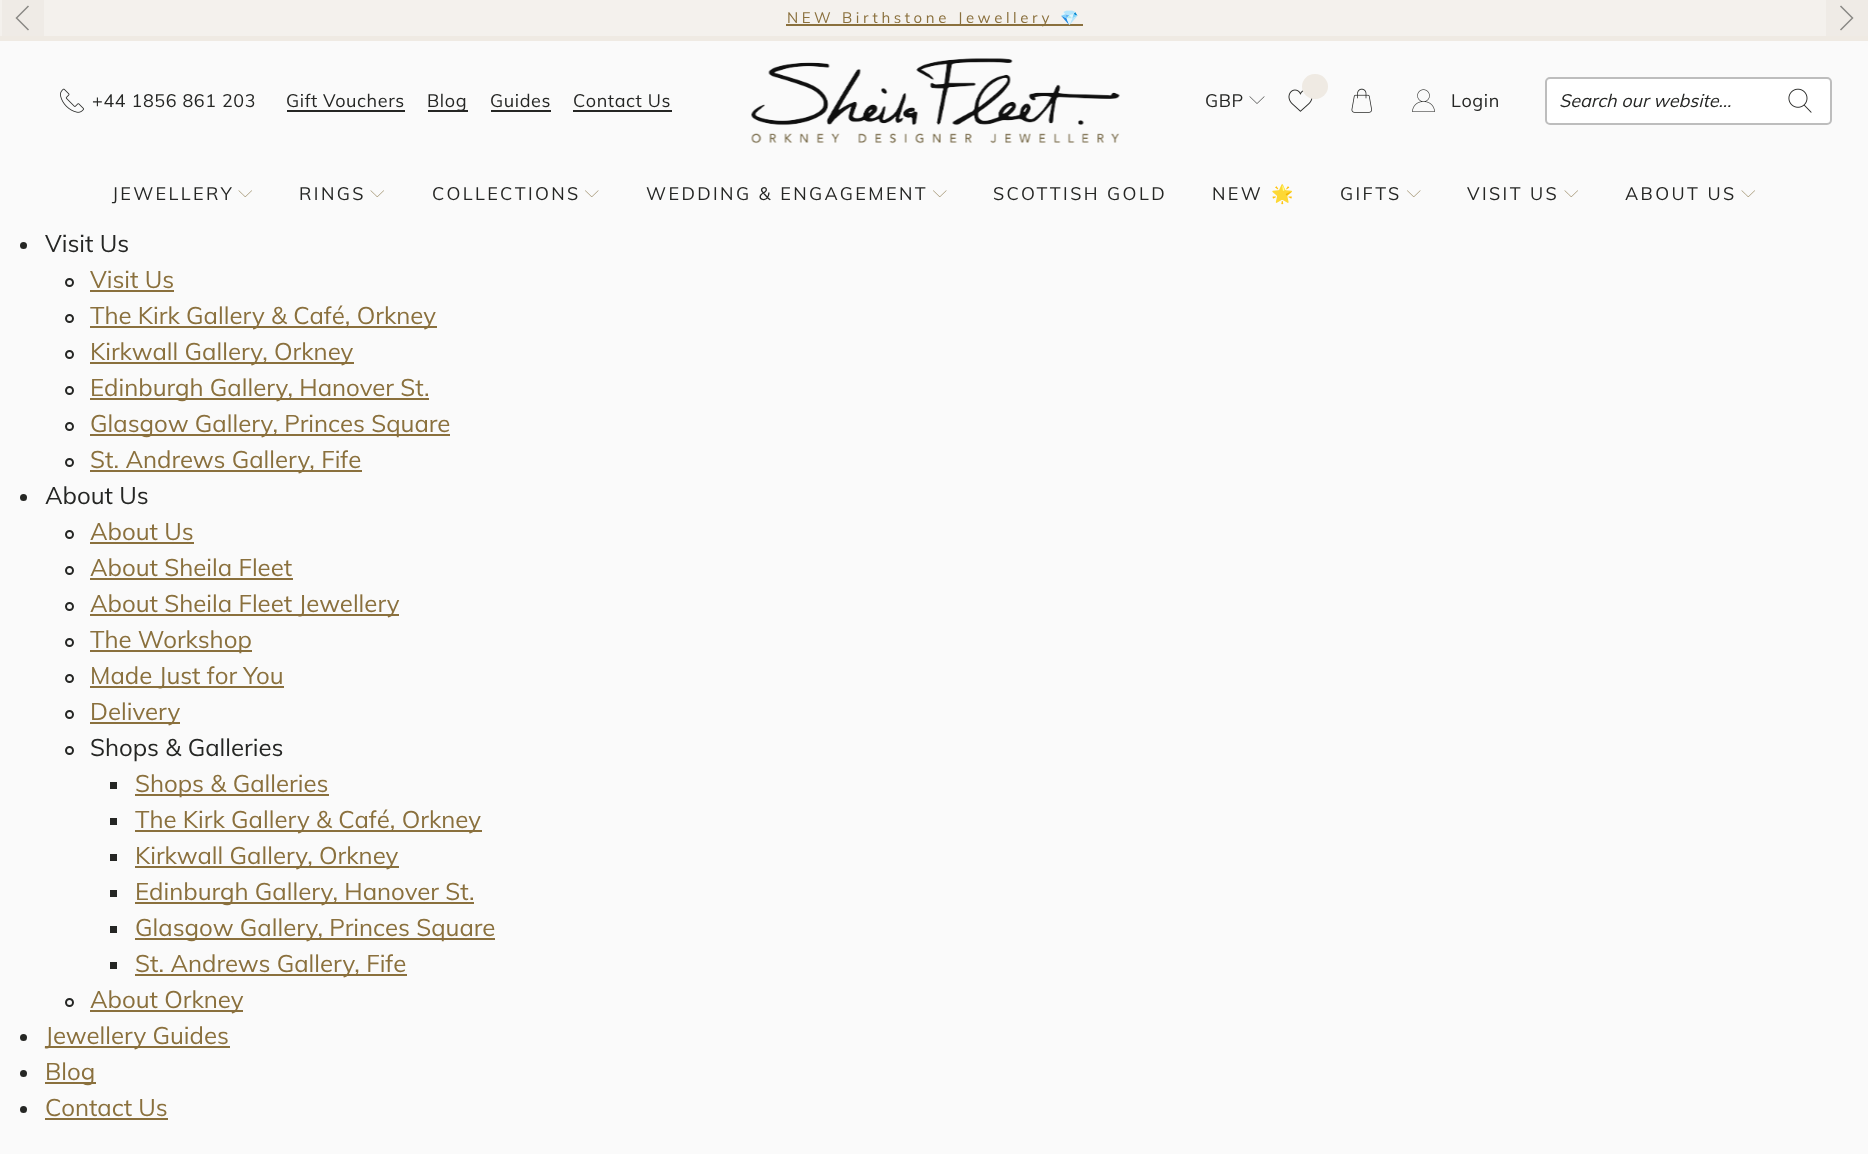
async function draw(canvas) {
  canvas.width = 1868;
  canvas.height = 1154;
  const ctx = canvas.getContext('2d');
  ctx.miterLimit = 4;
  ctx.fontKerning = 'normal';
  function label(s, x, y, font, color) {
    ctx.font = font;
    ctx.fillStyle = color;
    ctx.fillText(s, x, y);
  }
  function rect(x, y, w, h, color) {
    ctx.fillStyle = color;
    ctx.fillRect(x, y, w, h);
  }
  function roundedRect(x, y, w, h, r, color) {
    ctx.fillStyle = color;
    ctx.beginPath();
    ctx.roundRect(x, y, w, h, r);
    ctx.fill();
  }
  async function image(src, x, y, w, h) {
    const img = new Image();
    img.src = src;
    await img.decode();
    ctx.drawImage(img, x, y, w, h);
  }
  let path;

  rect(0, 0, 1868, 1154, '#fafafa');
  rect(0, 0, 1826, 36, '#f4f1ed');
  rect(0, 36, 1868, 5, '#efeae3');
  rect(2, 0, 42, 36, '#efebe6');
  path = new Path2D('M28.5 6L16.5 18L28.5 30');
  ctx.strokeStyle = '#8a8985';
  ctx.lineWidth = 1.5;
  ctx.stroke(path);
  rect(1826, 0, 42, 36, '#efebe6');
  path = new Path2D('M1840.5 30L1852.5 18L1840.5 6');
  ctx.stroke(path);
  rect(786, 24, 297, 2, '#8a703d');
  ctx.letterSpacing = '3.6px';
  label('NEW Birthstone Jewellery', 787, 23, '15px Muli', '#8a703d');
  label('💎', 1060, 23, '15px Noto Color Emoji', '#8a703d');
  await image('assets/img1.png', 60, 88, 24, 25);
  ctx.letterSpacing = '0.6px';
  label('+44 1856 861 203', 92, 107, '18px Muli', '#252624');
  label('Gift Vouchers', 286, 107, '18px Muli', '#252624');
  rect(287, 110, 118, 2, '#252624');
  label('Blog', 427, 107, '18px Muli', '#252624');
  rect(428, 110, 40, 2, '#252624');
  label('Guides', 490, 107, '18px Muli', '#252624');
  rect(491, 110, 60, 2, '#252624');
  label('Contact Us', 573, 107, '18px Muli', '#252624');
  rect(573, 110, 99, 2, '#252624');
  await image('assets/img2.png', 751, 58, 369, 86);
  ctx.letterSpacing = '0.5px';
  label('GBP', 1205, 107, '18px Muli', '#252624');
  await image('assets/img3.png', 1249, 96, 16, 8);
  await image('assets/img4.png', 1288, 89, 25, 23);
  roundedRect(1302, 74, 26, 25, 12.5, '#efeae3');
  await image('assets/img5.png', 1351, 88, 21, 25);
  await image('assets/img6.png', 1412, 89, 23, 23);
  ctx.letterSpacing = '0.6px';
  label('Login', 1451, 107, '18px Muli', '#252624');
  ctx.fillStyle = '#fff';
  ctx.beginPath();
  ctx.roundRect(1546, 78, 285, 46, 4);
  ctx.fill();
  ctx.strokeStyle = '#bdbdbd';
  ctx.lineWidth = 2;
  ctx.stroke();
  ctx.letterSpacing = '0px';
  label('Search our website...', 1559, 107, 'italic 18px Muli', '#252624');
  await image('assets/img7.png', 1788, 88, 24, 25);
  ctx.letterSpacing = '2.4px';
  label('JEWELLERY', 112, 200, '18px Muli', '#252624');
  await image('assets/img8.png', 238, 190, 14, 7);
  label('RINGS', 299, 200, '18px Muli', '#252624');
  await image('assets/img8.png', 370, 190, 14, 7);
  label('COLLECTIONS', 432, 200, '18px Muli', '#252624');
  await image('assets/img9.png', 585, 190, 14, 7);
  label('WEDDING & ENGAGEMENT', 646, 200, '18px Muli', '#252624');
  await image('assets/img9.png', 933, 190, 14, 7);
  label('SCOTTISH GOLD', 993, 200, '18px Muli', '#252624');
  label('NEW', 1212, 200, '18px Muli', '#252624');
  label('🌟', 1271, 200, '18px Noto Color Emoji', '#252624');
  label('GIFTS', 1340, 200, '18px Muli', '#252624');
  await image('assets/img9.png', 1407, 190, 14, 7);
  label('VISIT US', 1467, 200, '18px Muli', '#252624');
  await image('assets/img8.png', 1564, 190, 14, 7);
  label('ABOUT US', 1625, 200, '18px Muli', '#252624');
  await image('assets/img8.png', 1741, 190, 14, 7);
  ctx.beginPath();
  ctx.arc(23.5, 245.5, 3.5, 0, 2 * Math.PI);
  ctx.fill();
  ctx.letterSpacing = '0px';
  label('Visit Us', 45, 252, '24px Muli', '#252624');
  ctx.beginPath();
  ctx.arc(69.5, 282.5, 3.5, 0, 2 * Math.PI);
  ctx.strokeStyle = '#252624';
  ctx.stroke();
  label('Visit Us', 90, 288, '24px Muli', '#8a703d');
  rect(90, 290, 84, 2, '#8a703d');
  ctx.beginPath();
  ctx.arc(69.5, 318.5, 3.5, 0, 2 * Math.PI);
  ctx.stroke();
  rect(90, 326, 347, 2, '#8a703d');
  label('The Kirk Gallery & Café, Orkney', 90, 324, '24px Muli', '#8a703d');
  ctx.beginPath();
  ctx.arc(69.5, 354.5, 3.5, 0, 2 * Math.PI);
  ctx.stroke();
  rect(90, 362, 264, 2, '#8a703d');
  label('Kirkwall Gallery, Orkney', 90, 360, '24px Muli', '#8a703d');
  ctx.beginPath();
  ctx.arc(69.5, 390.5, 3.5, 0, 2 * Math.PI);
  ctx.stroke();
  rect(90, 398, 339, 2, '#8a703d');
  label('Edinburgh Gallery, Hanover St.', 90, 396, '24px Muli', '#8a703d');
  ctx.beginPath();
  ctx.arc(69.5, 426.5, 3.5, 0, 2 * Math.PI);
  ctx.stroke();
  rect(90, 434, 360, 2, '#8a703d');
  label('Glasgow Gallery, Princes Square', 90, 432, '24px Muli', '#8a703d');
  ctx.beginPath();
  ctx.arc(69.5, 462.5, 3.5, 0, 2 * Math.PI);
  ctx.stroke();
  rect(90, 470, 272, 2, '#8a703d');
  label('St. Andrews Gallery, Fife', 90, 468, '24px Muli', '#8a703d');
  ctx.fillStyle = '#252624';
  ctx.beginPath();
  ctx.arc(23.5, 497.5, 3.5, 0, 2 * Math.PI);
  ctx.fill();
  label('About Us', 45, 504, '24px Muli', '#252624');
  ctx.beginPath();
  ctx.arc(69.5, 534.5, 3.5, 0, 2 * Math.PI);
  ctx.stroke();
  label('About Us', 90, 540, '24px Muli', '#8a703d');
  rect(90, 542, 104, 2, '#8a703d');
  ctx.beginPath();
  ctx.arc(69.5, 570.5, 3.5, 0, 2 * Math.PI);
  ctx.stroke();
  label('About Sheila Fleet', 90, 576, '24px Muli', '#8a703d');
  rect(90, 578, 203, 2, '#8a703d');
  ctx.beginPath();
  ctx.arc(69.5, 606.5, 3.5, 0, 2 * Math.PI);
  ctx.stroke();
  rect(90, 614, 309, 2, '#8a703d');
  label('About Sheila Fleet Jewellery', 90, 612, '24px Muli', '#8a703d');
  ctx.beginPath();
  ctx.arc(69.5, 642.5, 3.5, 0, 2 * Math.PI);
  ctx.stroke();
  rect(90, 650, 162, 2, '#8a703d');
  label('The Workshop', 90, 648, '24px Muli', '#8a703d');
  ctx.beginPath();
  ctx.arc(69.5, 678.5, 3.5, 0, 2 * Math.PI);
  ctx.stroke();
  rect(90, 686, 194, 2, '#8a703d');
  label('Made Just for You', 90, 684, '24px Muli', '#8a703d');
  ctx.beginPath();
  ctx.arc(69.5, 714.5, 3.5, 0, 2 * Math.PI);
  ctx.stroke();
  rect(90, 722, 90, 2, '#8a703d');
  label('Delivery', 90, 720, '24px Muli', '#8a703d');
  ctx.beginPath();
  ctx.arc(69.5, 750.5, 3.5, 0, 2 * Math.PI);
  ctx.stroke();
  label('Shops & Galleries', 90, 756, '24px Muli', '#252624');
  rect(110, 782, 7, 7, '#252624');
  rect(135, 794, 194, 2, '#8a703d');
  label('Shops & Galleries', 135, 792, '24px Muli', '#8a703d');
  rect(110, 818, 7, 7, '#252624');
  rect(135, 830, 347, 2, '#8a703d');
  label('The Kirk Gallery & Café, Orkney', 135, 828, '24px Muli', '#8a703d');
  rect(110, 854, 7, 7, '#252624');
  rect(135, 866, 264, 2, '#8a703d');
  label('Kirkwall Gallery, Orkney', 135, 864, '24px Muli', '#8a703d');
  rect(110, 890, 7, 7, '#252624');
  rect(135, 902, 339, 2, '#8a703d');
  label('Edinburgh Gallery, Hanover St.', 135, 900, '24px Muli', '#8a703d');
  rect(110, 926, 7, 7, '#252624');
  rect(135, 938, 360, 2, '#8a703d');
  label('Glasgow Gallery, Princes Square', 135, 936, '24px Muli', '#8a703d');
  rect(110, 962, 7, 7, '#252624');
  rect(135, 974, 272, 2, '#8a703d');
  label('St. Andrews Gallery, Fife', 135, 972, '24px Muli', '#8a703d');
  ctx.beginPath();
  ctx.arc(69.5, 1002.5, 3.5, 0, 2 * Math.PI);
  ctx.stroke();
  rect(90, 1010, 153, 2, '#8a703d');
  label('About Orkney', 90, 1008, '24px Muli', '#8a703d');
  ctx.fillStyle = '#252624';
  ctx.beginPath();
  ctx.arc(23.5, 1037.5, 3.5, 0, 2 * Math.PI);
  ctx.fill();
  rect(45, 1046, 185, 2, '#8a703d');
  label('Jewellery Guides', 45, 1044, '24px Muli', '#8a703d');
  ctx.fillStyle = '#252624';
  ctx.beginPath();
  ctx.arc(23.5, 1073.5, 3.5, 0, 2 * Math.PI);
  ctx.fill();
  rect(45, 1082, 51, 2, '#8a703d');
  label('Blog', 45, 1080, '24px Muli', '#8a703d');
  ctx.fillStyle = '#252624';
  ctx.beginPath();
  ctx.arc(23.5, 1109.5, 3.5, 0, 2 * Math.PI);
  ctx.fill();
  label('Contact Us', 45, 1116, '24px Muli', '#8a703d');
  rect(45, 1118, 123, 2, '#8a703d');
}

draw(document.querySelector('canvas'));
